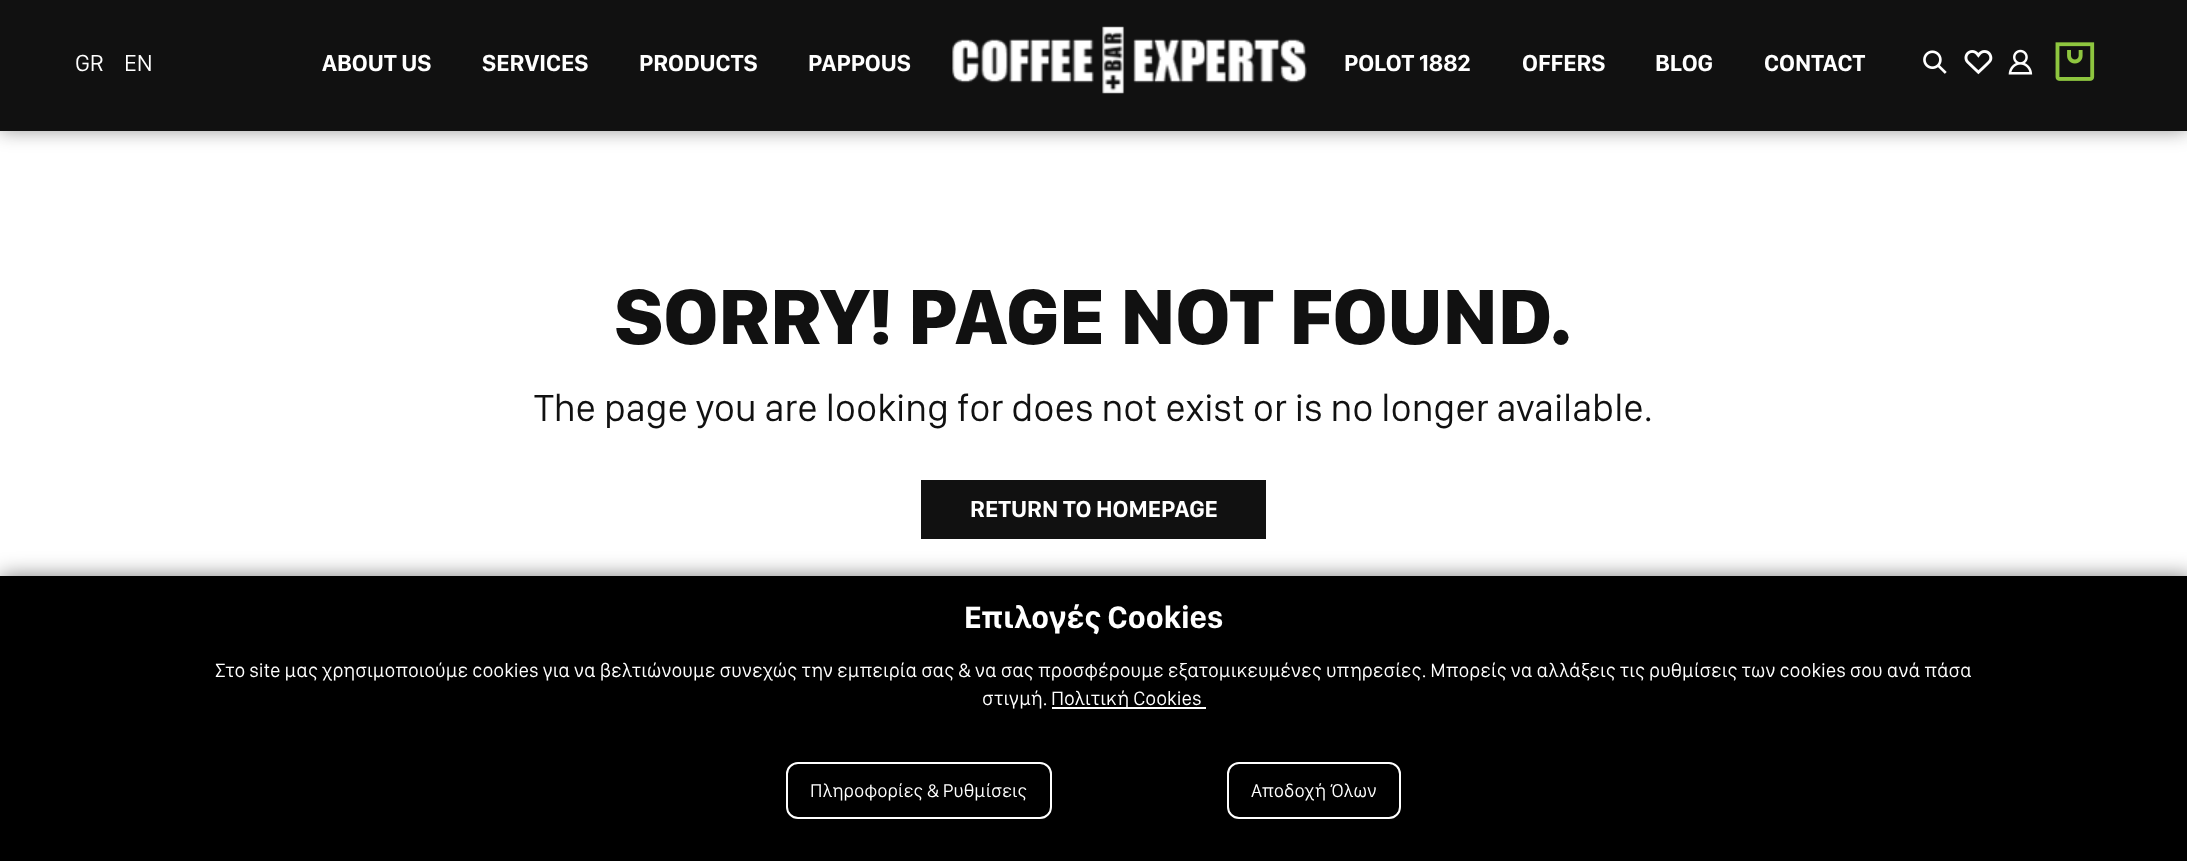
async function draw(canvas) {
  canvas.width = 2187;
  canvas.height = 861;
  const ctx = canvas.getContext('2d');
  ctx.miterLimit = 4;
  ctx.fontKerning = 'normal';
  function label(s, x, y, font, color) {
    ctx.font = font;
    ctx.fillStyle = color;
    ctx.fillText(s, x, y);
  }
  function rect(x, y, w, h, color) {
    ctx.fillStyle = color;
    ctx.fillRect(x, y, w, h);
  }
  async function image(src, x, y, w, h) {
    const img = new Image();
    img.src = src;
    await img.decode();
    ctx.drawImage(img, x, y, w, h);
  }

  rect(0, 0, 2187, 861, '#fff');
  ctx.fillStyle = '#0000004d';
  ctx.filter = 'blur(10px)';
  ctx.beginPath();
  ctx.rect(0, 0, 2187, 131);
  ctx.fill();
  ctx.filter = 'none';
  ctx.fillStyle = '#0000001a';
  ctx.filter = 'blur(7.5px)';
  ctx.beginPath();
  ctx.rect(0, -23, 2187, 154);
  ctx.fill();
  ctx.filter = 'none';
  rect(0, 0, 2187, 131, '#111');
  label('GR', 75, 71, '24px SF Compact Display', '#fff');
  label('EN', 124, 71, '24px SF Compact Display', '#fff');
  label('ABOUT US', 322, 71, 'bold 24px SF Compact Display', '#fff');
  label('SERVICES', 482, 71, 'bold 24px SF Compact Display', '#fff');
  label('PRODUCTS', 639, 71, 'bold 24px SF Compact Display', '#fff');
  label('PAPPOUS', 808, 71, 'bold 24px SF Compact Display', '#fff');
  await image('assets/img1.png', 952, 26, 355, 68);
  label('POLOT 1882', 1344, 71, 'bold 24px SF Compact Display', '#fff');
  label('OFFERS', 1522, 71, 'bold 24px SF Compact Display', '#fff');
  label('BLOG', 1655, 71, 'bold 24px SF Compact Display', '#fff');
  label('CONTACT', 1764, 71, 'bold 24px SF Compact Display', '#fff');
  await image('assets/img2.png', 1923, 50, 24, 24);
  await image('assets/img3.png', 1964, 50, 29, 25);
  await image('assets/img4.png', 2008, 49, 25, 26);
  await image('assets/img5.png', 2055, 42, 40, 39);
  label('SORRY! PAGE NOT FOUND.', 614, 344, '900 81px SF Compact Display', '#111');
  label('The page you are looking for does not exist or is no longer available.', 534, 421, '39px SF Compact Display', '#111');
  rect(921, 480, 345, 59, '#111');
  label('RETURN TO HOMEPAGE', 970, 517, 'bold 24px SF Compact Display', '#fff');
  ctx.fillStyle = '#00000080';
  ctx.filter = 'blur(10.5px)';
  ctx.beginPath();
  ctx.rect(0, 576, 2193, 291);
  ctx.fill();
  ctx.filter = 'none';
  rect(0, 576, 2187, 285, '#000');
  label('Επιλογές Cookies', 964, 628, 'bold 32px SF Compact Display', '#fff');
  label('Στο site μας χρησιμοποιούμε cookies για να βελτιώνουμε συνεχώς την εμπειρία σας & να σας προσφέρουμε εξατομικευμένες υπηρεσίες. Μπορείς να αλλάξεις τις ρυθμίσεις των cookies σου ανά πάσα', 215, 677, '20px SF Compact Display', '#fff');
  label('στιγμή.', 982, 705, '20px SF Compact Display', '#fff');
  rect(1052, 707, 154, 2, '#fff');
  label('Πολιτική Cookies', 1051, 705, '20px SF Compact Display', '#fff');
  ctx.beginPath();
  ctx.roundRect(787, 763, 264, 55, 11);
  ctx.strokeStyle = '#fff';
  ctx.lineWidth = 2;
  ctx.stroke();
  label('Πληροφορίες & Ρυθμίσεις', 810, 797, '19px SF Compact Display', '#fff');
  ctx.beginPath();
  ctx.roundRect(1228, 763, 172, 55, 11);
  ctx.stroke();
  label('Αποδοχή Όλων', 1251, 797, '19px SF Compact Display', '#fff');
}

draw(document.querySelector('canvas'));
